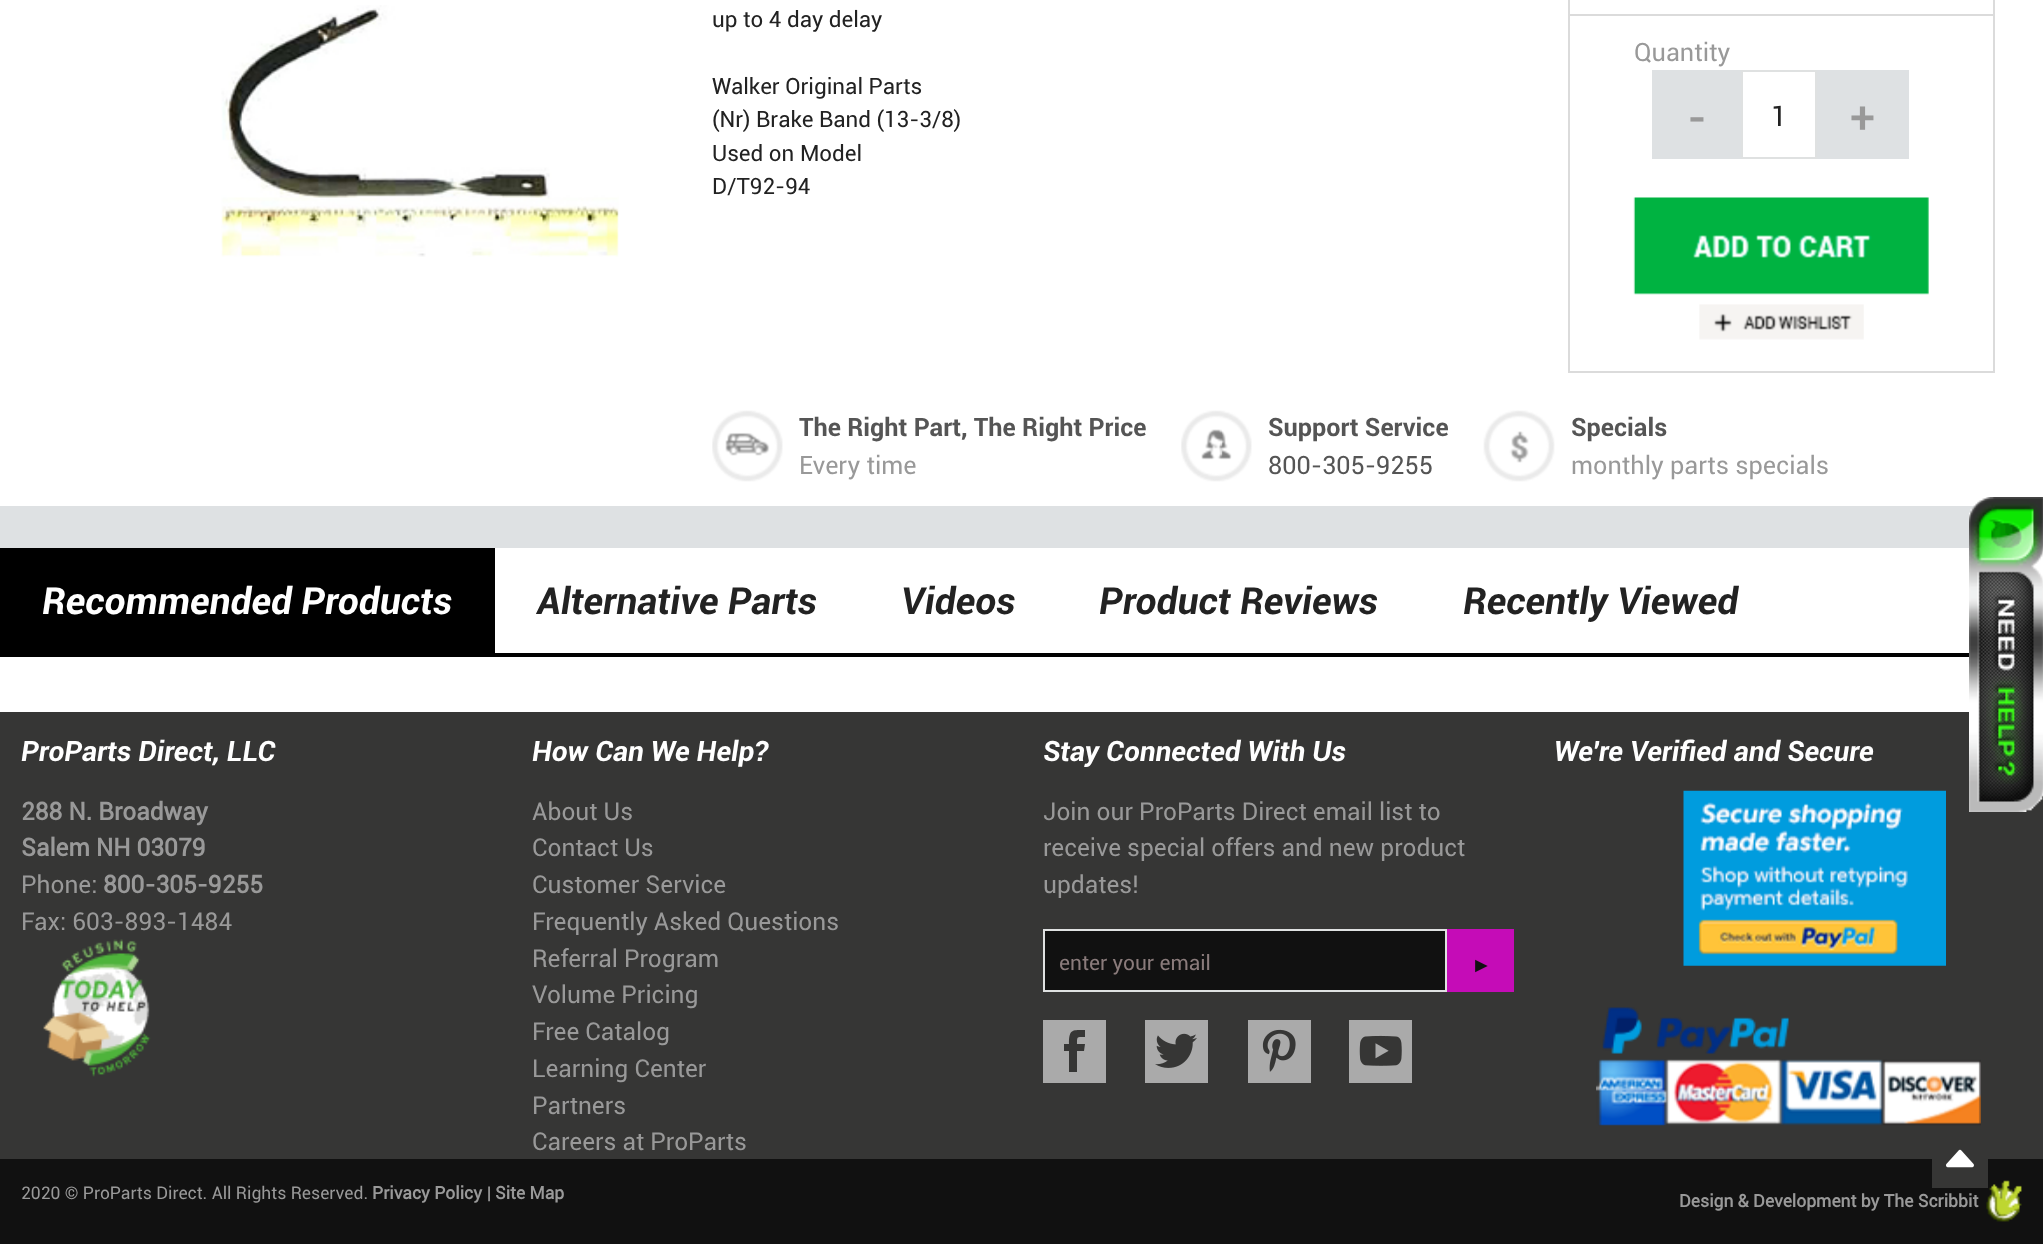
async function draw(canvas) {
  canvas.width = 2043;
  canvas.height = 1244;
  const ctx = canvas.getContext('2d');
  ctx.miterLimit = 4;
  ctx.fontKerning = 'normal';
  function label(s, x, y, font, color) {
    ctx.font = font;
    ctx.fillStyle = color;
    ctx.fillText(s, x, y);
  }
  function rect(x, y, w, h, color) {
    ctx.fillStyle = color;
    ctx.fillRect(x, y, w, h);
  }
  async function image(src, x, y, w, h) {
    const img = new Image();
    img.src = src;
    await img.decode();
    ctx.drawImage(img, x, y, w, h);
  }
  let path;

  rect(0, 0, 2043, 1244, '#dee1e3');
  rect(0, 0, 2043, 506, '#fff');
  await image('assets/img1.png', 221, 5, 398, 252);
  label('up to 4 day delay', 712, 27, '22.4px Roboto', '#222');
  label('Walker Original Parts', 712, 94, '22.4px Roboto', '#222');
  label('(Nr) Brake Band (13-3/8)', 712, 127, '22.4px Roboto', '#222');
  label('Used on Model', 712, 161, '22.4px Roboto', '#222');
  label('D/T92-94', 712, 194, '22.4px Roboto', '#222');
  ctx.strokeStyle = '#dbdbdb';
  ctx.lineWidth = 2;
  ctx.strokeRect(1569, -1, 425, 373);
  rect(1570, 14, 423, 2, '#dbdbdb');
  label('Quantity', 1634, 61, '25.25px Roboto', '#999');
  rect(1652, 70, 89, 89, '#dee1e3');
  label('-', 1687, 133, '500 45px Roboto', '#999');
  ctx.strokeStyle = '#dfe1e1';
  ctx.strokeRect(1742, 71, 74, 87);
  label('1', 1771, 126, '28px Roboto', '#222');
  rect(1817, 70, 92, 89, '#dee1e3');
  label('+', 1850, 133, '500 45px Roboto', '#999');
  await image('assets/img2.png', 1633, 197, 296, 98);
  await image('assets/img3.png', 1699, 304, 165, 36);
  await image('assets/img4.png', 712, 410, 71, 72);
  label('The Right Part, The Right Price', 799, 436, 'bold 25.25px Roboto', '#555');
  label('Every time', 799, 474, '25.25px Roboto', '#999');
  await image('assets/img5.png', 1181, 410, 71, 72);
  label('Support Service', 1268, 436, 'bold 25.25px Roboto', '#555');
  label('800-305-9255', 1268, 474, '25.25px Roboto', '#555');
  await image('assets/img6.png', 1483, 410, 72, 72);
  label('Specials', 1571, 436, 'bold 25.25px Roboto', '#555');
  label('monthly parts specials', 1571, 474, '25.25px Roboto', '#999');
  rect(0, 548, 2043, 164, '#fff');
  rect(0, 548, 495, 105, '#000');
  label('Recommended Products', 42, 614, 'italic bold 37.25px Roboto', '#fff');
  label('Alternative Parts', 537, 614, 'italic bold 37.25px Roboto', '#222');
  label('Videos', 901, 614, 'italic bold 37.25px Roboto', '#222');
  label('Product Reviews', 1099, 614, 'italic bold 37.25px Roboto', '#222');
  label('Recently Viewed', 1463, 614, 'italic bold 37.25px Roboto', '#222');
  rect(0, 653, 1969, 4, '#000');
  rect(0, 712, 2043, 447, '#363635');
  await image('assets/img7.png', 1969, 497, 74, 315);
  label('ProParts Direct, LLC', 21, 761, 'italic bold 28px Roboto', '#fff');
  label('288 N. Broadway', 21, 820, 'bold 24.5px "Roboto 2"', '#999');
  label('Salem NH 03079', 21, 856, 'bold 24.5px "Roboto 2"', '#999');
  label('Phone:', 21, 893, '24.5px Roboto', '#999');
  label('800-305-9255', 103, 893, 'bold 24.5px "Roboto 2"', '#999');
  label('Fax: 603-893-1484', 21, 930, '24.5px Roboto', '#999');
  await image('assets/img8.png', 43, 939, 108, 138);
  label('How Can We Help?', 532, 761, 'italic bold 28px Roboto', '#fff');
  label('About Us', 532, 820, '24.5px Roboto', '#999');
  label('Contact Us', 532, 856, '24.5px Roboto', '#999');
  label('Customer Service', 532, 893, '24.5px Roboto', '#999');
  label('Frequently Asked Questions', 532, 930, '24.5px Roboto', '#999');
  label('Referral Program', 532, 967, '24.5px Roboto', '#999');
  label('Volume Pricing', 532, 1003, '24.5px Roboto', '#999');
  label('Free Catalog', 532, 1040, '24.5px Roboto', '#999');
  label('Learning Center', 532, 1077, '24.5px Roboto', '#999');
  label('Partners', 532, 1114, '24.5px Roboto', '#999');
  label('Careers at ProParts', 532, 1150, '24.5px Roboto', '#999');
  label('Stay Connected With Us', 1043, 761, 'italic bold 28px Roboto', '#fff');
  label('Join our ProParts Direct email list to', 1043, 820, '24.5px Roboto', '#999');
  label('receive special offers and new product', 1043, 856, '24.5px Roboto', '#999');
  label('updates!', 1043, 893, '24.5px Roboto', '#999');
  ctx.fillStyle = '#111';
  ctx.beginPath();
  ctx.rect(1044, 930, 402, 61);
  ctx.fill();
  ctx.stroke();
  label('enter your email', 1059, 970, '21px Roboto', '#8a7b7b');
  rect(1447, 929, 67, 63, '#c50cb7');
  label('►', 1471, 972, '21px Liberation Sans', '#111');
  rect(1043, 1020, 63, 63, '#aaa');
  ctx.fillStyle = '#363635';
  path = new Path2D('M1069 1072V1051H1064V1044H1069C1069 1029 1072 1030 1085 1030V1037C1077 1037 1077 1036 1077 1044H1085L1084 1051H1077V1072Z');
  ctx.fill(path);
  rect(1145, 1020, 63, 63, '#aaa');
  await image('assets/img9.png', 1155, 1033, 42, 35);
  rect(1248, 1020, 63, 63, '#aaa');
  await image('assets/img10.png', 1262, 1029, 34, 43);
  rect(1349, 1020, 63, 63, '#aaa');
  await image('assets/img11.png', 1359, 1035, 43, 31);
  label('We\'re Verified and Secure', 1554, 761, 'italic bold 28px Roboto', '#fff');
  await image('assets/img12.png', 1683, 790, 263, 176);
  await image('assets/img13.png', 1596, 1007, 385, 119);
  rect(0, 1159, 2043, 85, '#111');
  label('2020 © ProParts Direct. All Rights Reserved.', 21, 1199, '17.5px Roboto', '#999');
  label('Privacy Policy', 372, 1199, 'bold 17.5px "Roboto 2"', '#999');
  label('|', 487, 1199, '17.5px Roboto', '#999');
  label('Site Map', 495, 1199, 'bold 17.5px "Roboto 2"', '#999');
  label('Design & Development by The Scribbit', 1679, 1207, 'bold 17.5px "Roboto 2"', '#999');
  await image('assets/img14.png', 1986, 1180, 36, 42);
  rect(1932, 1159, 56, 29, '#363635');
  await image('assets/img15.png', 1946, 1149, 28, 19);
}

draw(document.querySelector('canvas'));
